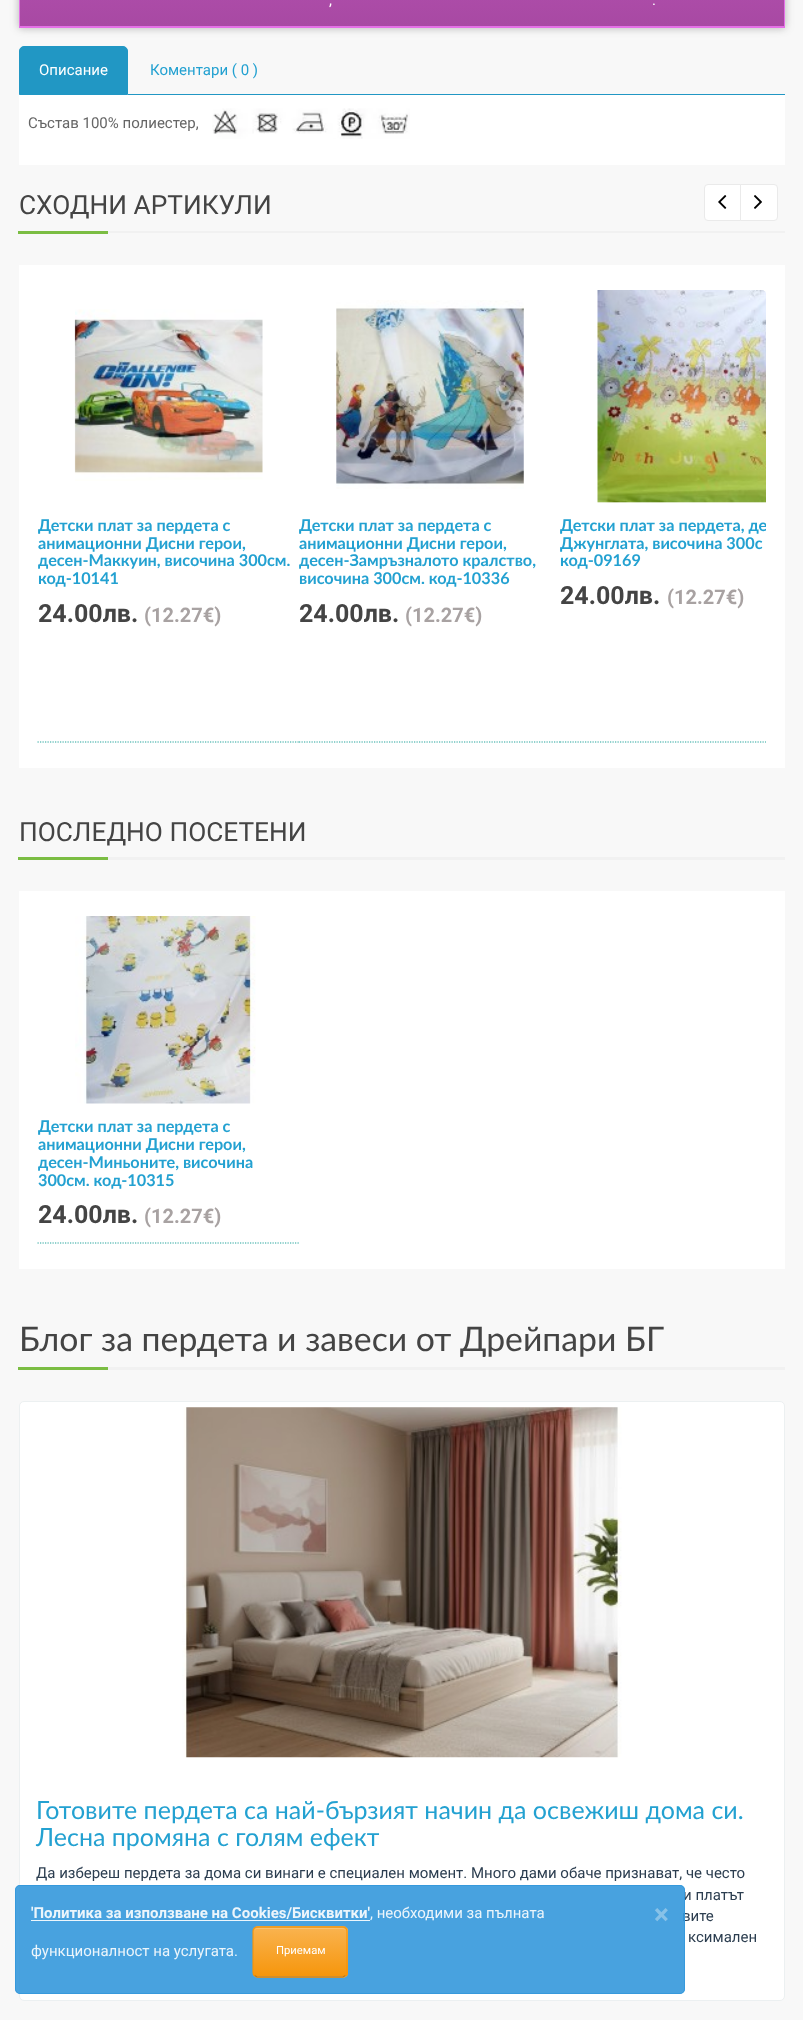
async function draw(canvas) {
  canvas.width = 803;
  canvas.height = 2020;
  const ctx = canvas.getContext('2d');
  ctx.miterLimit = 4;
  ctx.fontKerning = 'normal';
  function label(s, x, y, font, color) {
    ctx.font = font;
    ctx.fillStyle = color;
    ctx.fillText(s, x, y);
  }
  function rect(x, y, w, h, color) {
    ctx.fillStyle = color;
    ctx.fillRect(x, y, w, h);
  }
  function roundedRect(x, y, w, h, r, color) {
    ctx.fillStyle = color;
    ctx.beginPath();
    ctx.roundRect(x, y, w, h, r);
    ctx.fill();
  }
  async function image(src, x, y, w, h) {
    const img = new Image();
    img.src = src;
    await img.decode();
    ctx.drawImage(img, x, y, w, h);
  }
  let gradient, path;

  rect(0, 0, 803, 2020, '#f8f8f8');
  ctx.fillStyle = '#32323259';
  ctx.filter = 'blur(4.5px)';
  ctx.beginPath();
  ctx.rect(19, -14, 766, 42);
  ctx.fill();
  ctx.filter = 'none';
  gradient = ctx.createLinearGradient(402, -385, 402, 26);
  gradient.addColorStop(0, '#e570e7');
  gradient.addColorStop(0.47, '#c85ec7');
  gradient.addColorStop(1, '#a849a3');
  ctx.fillStyle = gradient;
  ctx.fillRect(20, 0, 764, 26);
  gradient = ctx.createLinearGradient(402, 26, 402, 438);
  gradient.addColorStop(0, '#e570e7');
  gradient.addColorStop(0.47, '#c85ec7');
  gradient.addColorStop(1, '#a849a3');
  ctx.fillStyle = gradient;
  ctx.fillRect(19, 26, 766, 1);
  ctx.strokeStyle = '#e470e6';
  ctx.strokeRect(19.5, -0.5, 765, 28);
  label(',', 329, 5, '15px Roboto', '#fff');
  label('.', 652, 5, '15px Roboto', '#fff');
  rect(128, 94, 657, 1, '#2197c4');
  ctx.beginPath();
  ctx.roundRect(19.5, 46.5, 108, 48, [4.5, 4.5, 0, 0]);
  ctx.fill();
  ctx.strokeStyle = '#2197c4';
  ctx.stroke();
  label('Описание', 39, 75, '15px Roboto', '#fff');
  label('Коментари ( 0 )', 150, 75, '15px Roboto', '#23a1d1');
  rect(19, 95, 766, 70, '#fff');
  label('Състав 100% полиестер,', 28, 128, '15px Roboto', '#666');
  await image('assets/img1.png', 212, 108, 198, 31);
  rect(108, 231, 677, 2, '#f1f1f1');
  rect(18, 231, 90, 3, '#7bbd43');
  label('СХОДНИ АРТИКУЛИ', 19, 214, '26.25px Roboto', '#444');
  rect(19, 265, 766, 503, '#fff');
  ctx.beginPath();
  ctx.roundRect(704.5, 184.5, 36, 36, [3.5, 0, 0, 3.5]);
  ctx.fill();
  ctx.strokeStyle = '#eaeaea';
  ctx.stroke();
  await image('assets/img2.png', 718, 195, 9, 14);
  ctx.beginPath();
  ctx.roundRect(740.5, 184.5, 37, 36, [0, 3.5, 3.5, 0]);
  ctx.fill();
  ctx.stroke();
  await image('assets/img3.png', 754, 195, 8, 14);
  path = new Path2D('M37.5 742H299');
  ctx.strokeStyle = '#25a49c';
  ctx.lineWidth = 1.2;
  ctx.setLineDash([1.25, 1.25]);
  ctx.stroke(path);
  await image('assets/img4.png', 74, 309, 189, 172);
  ctx.save();
  ctx.beginPath();
  ctx.rect(38, 290, 261, 451);
  ctx.clip();
  label('Детски плат за пердета с', 38, 531, 'bold 16.25px Lato', '#23a1d1');
  ctx.restore();
  label('анимационни Дисни герои,', 38, 549, 'bold 16.25px Lato', '#23a1d1');
  ctx.save();
  ctx.beginPath();
  ctx.rect(38, 290, 261, 451);
  ctx.clip();
  label('десен-Маккуин, височина 300см.', 38, 566, 'bold 16.25px Lato', '#23a1d1');
  ctx.restore();
  label('код-10141', 38, 584, 'bold 16.25px Lato', '#23a1d1');
  label('24.00лв.', 38, 622, 'bold 25px Roboto', '#444');
  label('(12.27€)', 144, 622, 'bold 20px Roboto', '#a8a2a2');
  path = new Path2D('M299 742H560');
  ctx.stroke(path);
  await image('assets/img5.png', 336, 300, 188, 189);
  ctx.save();
  ctx.beginPath();
  ctx.rect(299, 290, 261, 451);
  ctx.clip();
  label('Детски плат за пердета с', 299, 531, 'bold 16.25px Lato', '#23a1d1');
  ctx.restore();
  label('анимационни Дисни герои,', 299, 549, 'bold 16.25px Lato', '#23a1d1');
  ctx.save();
  ctx.beginPath();
  ctx.rect(299, 290, 261, 451);
  ctx.clip();
  label('десен-Замръзналото кралство,', 299, 566, 'bold 16.25px Lato', '#23a1d1');
  ctx.restore();
  label('височина 300см. код-10336', 299, 584, 'bold 16.25px Lato', '#23a1d1');
  label('24.00лв.', 299, 622, 'bold 25px Roboto', '#444');
  label('(12.27€)', 405, 622, 'bold 20px Roboto', '#a8a2a2');
  ctx.save();
  ctx.beginPath();
  ctx.roundRect(38, 290, 728, 478, 5);
  ctx.clip();
  path = new Path2D('M560 742H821');
  ctx.stroke(path);
  ctx.restore();
  await image('assets/img6.png', 597, 290, 169, 213);
  ctx.save();
  ctx.beginPath();
  ctx.roundRect(38, 290, 728, 478, 5);
  ctx.clip();
  label('Детски плат за пердета, де', 560, 531, 'bold 16.25px Lato', '#23a1d1');
  ctx.restore();
  label('Джунглата, височина 300с', 560, 549, 'bold 16.25px Lato', '#23a1d1');
  label('код-09169', 560, 566, 'bold 16.25px Lato', '#23a1d1');
  label('24.00лв.', 560, 604, 'bold 25px Roboto', '#444');
  label('(12.27€)', 667, 604, 'bold 20px Roboto', '#a8a2a2');
  rect(108, 857, 677, 3, '#f1f1f1');
  rect(18, 857, 90, 3, '#7bbd43');
  label('ПОСЛЕДНО ПОСЕТЕНИ', 19, 841, '26.25px Roboto', '#444');
  rect(19, 891, 766, 378, '#fff');
  path = new Path2D('M37.5 1243H299');
  ctx.stroke(path);
  await image('assets/img7.png', 75, 916, 181, 188);
  ctx.save();
  ctx.beginPath();
  ctx.rect(38, 916, 261, 327);
  ctx.clip();
  label('Детски плат за пердета с', 38, 1132, 'bold 16.25px Lato', '#23a1d1');
  ctx.restore();
  label('анимационни Дисни герои,', 38, 1150, 'bold 16.25px Lato', '#23a1d1');
  ctx.save();
  ctx.beginPath();
  ctx.rect(38, 916, 261, 327);
  ctx.clip();
  label('десен-Миньоните, височина', 38, 1168, 'bold 16.25px Lato', '#23a1d1');
  ctx.restore();
  label('300см. код-10315', 38, 1186, 'bold 16.25px Lato', '#23a1d1');
  label('24.00лв.', 38, 1223, 'bold 25px Roboto', '#444');
  label('(12.27€)', 144, 1223, 'bold 20px Roboto', '#a8a2a2');
  rect(108, 1367, 677, 3, '#f1f1f1');
  rect(18, 1367, 90, 3, '#7bbd43');
  label('Блог за пердета и завеси от Дрейпари БГ', 19, 1351, '33.75px Lato', '#444');
  ctx.fillStyle = '#fff';
  ctx.beginPath();
  ctx.roundRect(19.5, 1401.5, 765, 599, 4.5);
  ctx.fill();
  ctx.strokeStyle = '#ecf0f1';
  ctx.lineWidth = 1;
  ctx.setLineDash([]);
  ctx.stroke();
  await image('assets/img8.png', 182, 1407, 440, 351);
  label('Готовите пердета са най-бързият начин да освежиш дома си.', 36, 1819, '25px Lato', '#23a1d1');
  label('Лесна промяна с голям ефект', 36, 1846, '25px Lato', '#23a1d1');
  label('Да избереш пердета за дома си винаги е специален момент. Много дами обаче признават, че често', 36, 1878, '15px Roboto', '#2c3e50');
  label('и платът', 683, 1900, '15px Roboto', '#2c3e50');
  label('вите', 682, 1921, '15px Roboto', '#2c3e50');
  label('ксимален', 688, 1942, '15px Roboto', '#2c3e50');
  roundedRect(15, 1885, 670, 109, 5, '#3498dbe6');
  ctx.beginPath();
  ctx.roundRect(15.5, 1885.5, 669, 108, 4.5);
  ctx.strokeStyle = '#3498dbe6';
  ctx.stroke();
  label('\'Политика за използване на Cookies/Бисквитки\'', 31, 1918, 'bold 15px Roboto', '#ecf5fb');
  rect(31, 1920, 339, 1, '#ffffffe6');
  label(', необходими за пълната', 370, 1918, '15px Roboto', '#ecf5fb');
  label('×', 654, 1924, 'bold 28px Roboto', '#88c2e8');
  label('функционалност на услугата.', 31, 1956, '15px Roboto', '#ecf5fb');
  roundedRect(253, 1926, 95, 52, 5, '#faa732e6');
  ctx.save();
  ctx.beginPath();
  ctx.roundRect(253, 1926, 95, 52, 5);
  ctx.clip();
  gradient = ctx.createLinearGradient(300, 1928, 300, 1976);
  gradient.addColorStop(0, '#fbb450e6');
  gradient.addColorStop(1, '#f89406e6');
  ctx.fillStyle = gradient;
  ctx.fillRect(253, 1928, 95, 48);
  ctx.restore();
  ctx.fillStyle = '#fac271';
  path = new Path2D('M258 1929H343L346 1930C345 1929 344 1928 342 1928H258C256 1928 255 1929 254 1930C255 1929 256 1929 258 1929Z');
  ctx.fill(path);
  path = new Path2D('M345.5 1975.5L343 1977H257L254.5 1975.5');
  ctx.strokeStyle = '#b5761d';
  ctx.lineWidth = 1.2;
  ctx.stroke(path);
  path = new Path2D('M254.5 1975.5C253.5 1975 253 1973.5 253 1972.5V1931C253 1930 253.5 1929 254.5 1928C255 1927.5 256.5 1927 257.5 1927H342.5C343.5 1927 345 1927.5 345.5 1928C346.5 1929 347 1930 347 1931V1972.5C347 1973.5 346.5 1975 345.5 1975.5');
  ctx.strokeStyle = '#f89406e6';
  ctx.stroke(path);
  label('Приемам', 276, 1954, '11.25px Roboto', '#fff');
}

draw(document.querySelector('canvas'));
